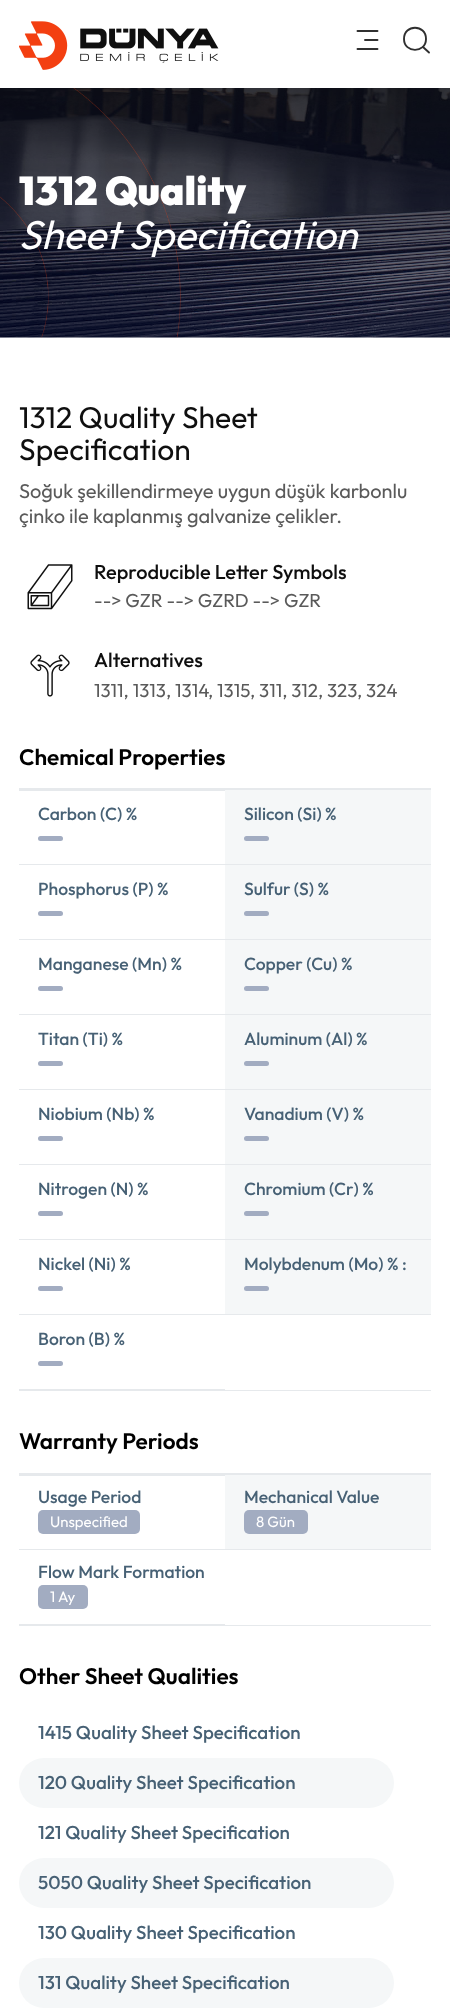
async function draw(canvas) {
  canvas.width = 450;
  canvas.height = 2009;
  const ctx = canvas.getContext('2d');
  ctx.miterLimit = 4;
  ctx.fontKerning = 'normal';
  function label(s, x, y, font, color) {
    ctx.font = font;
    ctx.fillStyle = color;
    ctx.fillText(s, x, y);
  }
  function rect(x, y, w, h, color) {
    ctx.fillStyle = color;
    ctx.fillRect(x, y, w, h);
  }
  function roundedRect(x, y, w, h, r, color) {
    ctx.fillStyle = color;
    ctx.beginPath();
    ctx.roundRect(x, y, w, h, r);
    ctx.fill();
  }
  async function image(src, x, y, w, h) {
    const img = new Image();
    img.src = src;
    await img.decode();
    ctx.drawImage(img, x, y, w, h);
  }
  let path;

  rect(0, 0, 450, 2009, '#fff');
  await image('assets/img1.png', 19, 21, 200, 49);
  path = new Path2D('M377.5 40H365M377.5 31H357.5M377.5 49H357.5');
  ctx.strokeStyle = '#303030';
  ctx.lineWidth = 1.9;
  ctx.lineCap = 'round';
  ctx.lineJoin = 'round';
  ctx.stroke(path);
  path = new Path2D('M423 47L429 52.5');
  ctx.stroke(path);
  path = new Path2D('M426 39C426 24 404 24 404 39C404 53.5 426 53.5 426 39Z');
  ctx.lineCap = 'butt';
  ctx.stroke(path);
  await image('assets/img2.png', 0, 88, 450, 250);
  await image('assets/img3.png', 0, 88, 450, 250);
  label('1312 Quality', 19, 205, '900 40px Outfit', '#fff');
  label('Sheet Specification', 19, 249, 'italic 40px Outfit', '#fff');
  label('1312 Quality Sheet', 19, 428, '30px Outfit', '#0f0f0f');
  label('Specification', 19, 460, '30px Outfit', '#0f0f0f');
  label('Soğuk şekillendirmeye uygun düşük karbonlu', 19, 498, '20px Outfit', '#5a5a5a');
  label('çinko ile kaplanmış galvanize çelikler.', 19, 523, '20px Outfit', '#5a5a5a');
  await image('assets/img4.png', 27, 564, 46, 46);
  label('Reproducible Letter Symbols', 94, 579, '500 20px Outfit', '#0f0f0f');
  label('--> GZR --> GZRD --> GZR', 94, 607, '18.75px Outfit', '#5a5a5a');
  await image('assets/img5.png', 30, 654, 40, 43);
  label('Alternatives', 94, 667, '500 20px Outfit', '#0f0f0f');
  label('1311, 1313', 94, 697, '18.75px Outfit', '#5a5a5a');
  label(', 1314', 166, 697, '18.75px Outfit', '#5a5a5a');
  label(', 1315', 208, 697, '18.75px Outfit', '#5a5a5a');
  label(', 311, 312, 323', 250, 697, '18.75px Outfit', '#5a5a5a');
  label(', 324', 357, 697, '18.75px Outfit', '#5a5a5a');
  label('Chemical Properties', 19, 765, '600 22.5px Outfit', '#000');
  rect(19, 788, 412, 3, '#e6e9ec');
  rect(19, 1390, 412, 1, '#e6e9ec');
  rect(19, 864, 412, 1, '#e6e9ec');
  label('Carbon (C) %', 38, 820, '500 17.5px Outfit', '#476175');
  roundedRect(38, 836, 25, 5, 2.5, '#a2acc1');
  rect(225, 790, 206, 74, '#f5f7f8');
  label('Silicon (Si) %', 244, 820, '500 17.5px Outfit', '#476175');
  roundedRect(244, 836, 25, 5, 2.5, '#a2acc1');
  rect(19, 939, 412, 1, '#e6e9ec');
  label('Phosphorus (P) %', 38, 895, '500 17.5px Outfit', '#476175');
  roundedRect(38, 911, 25, 5, 2.5, '#a2acc1');
  rect(225, 865, 206, 74, '#f5f7f8');
  label('Sulfur (S) %', 244, 895, '500 17.5px Outfit', '#476175');
  roundedRect(244, 911, 25, 5, 2.5, '#a2acc1');
  rect(19, 1014, 412, 1, '#e6e9ec');
  label('Manganese (Mn) %', 38, 970, '500 17.5px Outfit', '#476175');
  roundedRect(38, 986, 25, 5, 2.5, '#a2acc1');
  rect(225, 940, 206, 74, '#f5f7f8');
  label('Copper (Cu) %', 244, 970, '500 17.5px Outfit', '#476175');
  roundedRect(244, 986, 25, 5, 2.5, '#a2acc1');
  rect(19, 1089, 412, 1, '#e6e9ec');
  label('Titan (Ti) %', 38, 1045, '500 17.5px Outfit', '#476175');
  roundedRect(38, 1061, 25, 5, 2.5, '#a2acc1');
  rect(225, 1015, 206, 74, '#f5f7f8');
  label('Aluminum (Al) %', 244, 1045, '500 17.5px Outfit', '#476175');
  roundedRect(244, 1061, 25, 5, 2.5, '#a2acc1');
  rect(19, 1164, 412, 1, '#e6e9ec');
  label('Niobium (Nb) %', 38, 1120, '500 17.5px Outfit', '#476175');
  roundedRect(38, 1136, 25, 5, 2.5, '#a2acc1');
  rect(225, 1090, 206, 74, '#f5f7f8');
  label('Vanadium (V) %', 244, 1120, '500 17.5px Outfit', '#476175');
  roundedRect(244, 1136, 25, 5, 2.5, '#a2acc1');
  rect(19, 1239, 412, 1, '#e6e9ec');
  label('Nitrogen (N) %', 38, 1195, '500 17.5px Outfit', '#476175');
  roundedRect(38, 1211, 25, 5, 2.5, '#a2acc1');
  rect(225, 1165, 206, 74, '#f5f7f8');
  label('Chromium (Cr) %', 244, 1195, '500 17.5px Outfit', '#476175');
  roundedRect(244, 1211, 25, 5, 2.5, '#a2acc1');
  rect(19, 1314, 412, 1, '#e6e9ec');
  label('Nickel (Ni) %', 38, 1270, '500 17.5px Outfit', '#476175');
  roundedRect(38, 1286, 25, 5, 2.5, '#a2acc1');
  rect(225, 1240, 206, 74, '#f5f7f8');
  label('Molybdenum (Mo) % :', 244, 1270, '500 17.5px Outfit', '#476175');
  roundedRect(244, 1286, 25, 5, 2.5, '#a2acc1');
  rect(19, 1389, 206, 1, '#e6e9ec');
  label('Boron (B) %', 38, 1345, '500 17.5px Outfit', '#476175');
  roundedRect(38, 1361, 25, 5, 2.5, '#a2acc1');
  label('Warranty Periods', 19, 1449, '600 22.5px Outfit', '#000');
  rect(19, 1473, 412, 3, '#e6e9ec');
  rect(19, 1625, 412, 1, '#e6e9ec');
  rect(19, 1549, 412, 1, '#e6e9ec');
  label('Usage Period', 38, 1503, '500 17.5px Outfit', '#476175');
  roundedRect(38, 1510, 102, 24, 5, '#a2acc1');
  label('Unspecified', 50, 1527, '15px Outfit', '#fff');
  rect(225, 1475, 206, 74, '#f5f7f8');
  label('Mechanical Value', 244, 1503, '500 17.5px Outfit', '#476175');
  roundedRect(244, 1510, 64, 24, 5, '#a2acc1');
  label('8 Gün', 256, 1527, '15px Outfit', '#fff');
  rect(19, 1624, 206, 1, '#e6e9ec');
  label('Flow Mark Formation', 38, 1578, '500 17.5px Outfit', '#476175');
  roundedRect(38, 1585, 50, 24, 5, '#a2acc1');
  label('1 Ay', 50, 1602, '15px Outfit', '#fff');
  label('Other Sheet Qualities', 19, 1684, '600 22.5px Outfit', '#000');
  label('1415 Quality Sheet Specification', 38, 1739, '500 18.75px Outfit', '#476175');
  roundedRect(19, 1758, 375, 50, 25, '#f5f7f8');
  label('120 Quality Sheet Specification', 38, 1789, '500 18.75px Outfit', '#476175');
  label('121 Quality Sheet Specification', 38, 1839, '500 18.75px Outfit', '#476175');
  roundedRect(19, 1858, 375, 50, 25, '#f5f7f8');
  label('5050 Quality Sheet Specification', 38, 1889, '500 18.75px Outfit', '#476175');
  label('130 Quality Sheet Specification', 38, 1939, '500 18.75px Outfit', '#476175');
  roundedRect(19, 1958, 375, 50, 25, '#f5f7f8');
  label('131 Quality Sheet Specification', 38, 1989, '500 18.75px Outfit', '#476175');
}

draw(document.querySelector('canvas'));
